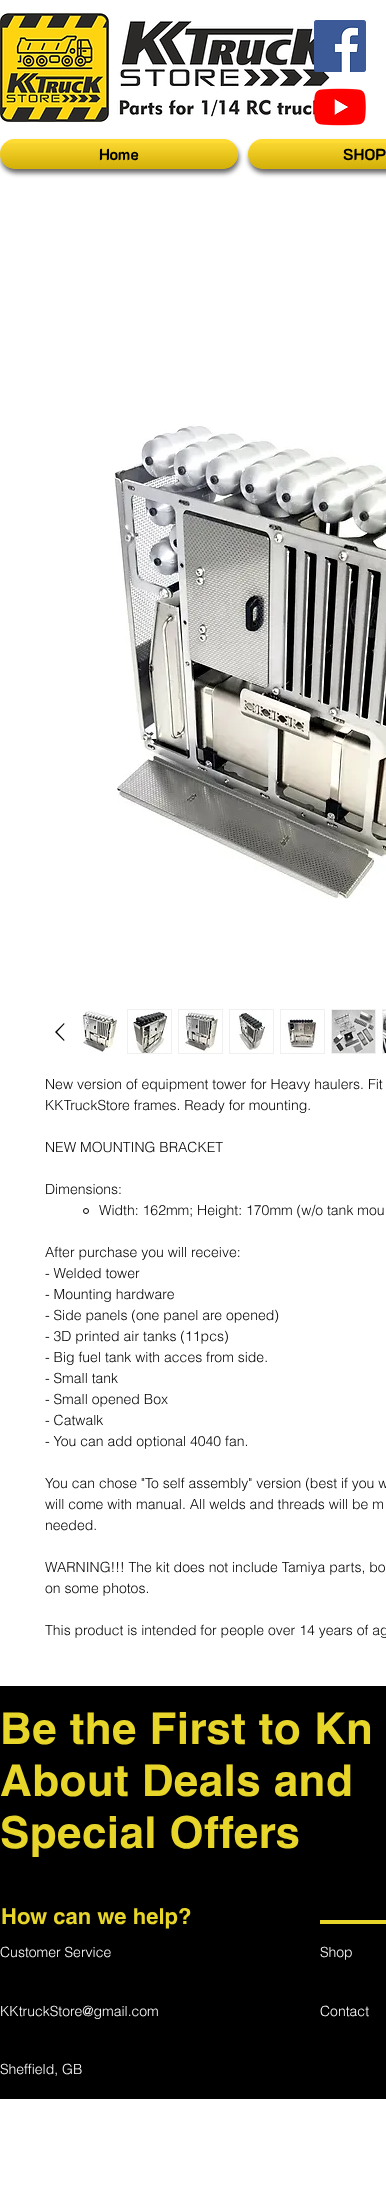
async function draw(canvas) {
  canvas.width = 386;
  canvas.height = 2206;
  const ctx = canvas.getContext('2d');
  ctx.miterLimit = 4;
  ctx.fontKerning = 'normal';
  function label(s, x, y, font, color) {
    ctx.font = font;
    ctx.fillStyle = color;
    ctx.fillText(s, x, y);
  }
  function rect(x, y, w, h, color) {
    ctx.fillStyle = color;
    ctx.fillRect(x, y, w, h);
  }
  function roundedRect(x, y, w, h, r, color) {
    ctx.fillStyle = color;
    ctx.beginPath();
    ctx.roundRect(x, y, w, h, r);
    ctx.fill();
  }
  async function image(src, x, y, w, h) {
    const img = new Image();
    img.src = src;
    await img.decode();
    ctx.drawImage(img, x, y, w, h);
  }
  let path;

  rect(0, 0, 386, 2206, '#fff');
  await image('assets/img3.png', 0, 13, 335, 109);
  await image('assets/img1.png', 314, 20, 52, 52);
  await image('assets/img2.png', 314, 88, 52, 38);
  ctx.fillStyle = '#00000099';
  ctx.filter = 'blur(2.5px)';
  ctx.beginPath();
  ctx.roundRect(1, 143, 238, 30, 15);
  ctx.fill();
  ctx.filter = 'none';
  roundedRect(0, 139, 238, 30, 15, '#ffd403');
  await image('assets/img4.png', 0, 139, 238, 30);
  await image('assets/img5.png', 0, 143, 238, 26);
  label('Home', 99, 160, 'bold 16px "K2D"', '#000');
  ctx.fillStyle = '#00000099';
  ctx.filter = 'blur(2.5px)';
  ctx.beginPath();
  ctx.roundRect(249, 143, 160, 30, 15);
  ctx.fill();
  ctx.filter = 'none';
  roundedRect(248, 139, 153, 30, 15, '#ffd403');
  await image('assets/img6.png', 248, 139, 138, 30);
  await image('assets/img7.png', 248, 143, 138, 26);
  label('SHOP', 343, 160, 'bold 16px "K2D"', '#000');
  await image('assets/img8.png', 114, 424, 272, 475);
  path = new Path2D('M64 1023L64.5 1024L57 1032L64.5 1040L64 1041L55 1032Z');
  ctx.fill(path, 'evenodd');
  await image('assets/img9.png', 81, 1010, 36, 43);
  ctx.strokeStyle = '#f0f0f0';
  ctx.strokeRect(127.5, 1009.5, 44, 44);
  await image('assets/img10.png', 132, 1010, 36, 43);
  ctx.strokeRect(178.5, 1009.5, 44, 44);
  await image('assets/img11.png', 183, 1010, 35, 43);
  ctx.strokeRect(229.5, 1009.5, 44, 44);
  await image('assets/img12.png', 238, 1010, 28, 40);
  ctx.strokeRect(280.5, 1009.5, 44, 44);
  await image('assets/img13.png', 285, 1018, 32, 32);
  ctx.strokeRect(331.5, 1009.5, 44, 44);
  await image('assets/img14.png', 332, 1010, 43, 43);
  ctx.strokeRect(382.5, 1009.5, 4, 44);
  await image('assets/img15.png', 383, 1010, 3, 43);
  label('New version of equipment tower for Heavy haulers. Fit', 45, 1089, '300 14px helvetica', '#000');
  label('KKTruckStore frames. Ready for mounting.', 45, 1110, '300 14px helvetica', '#000');
  label('NEW MOUNTING BRACKET', 45, 1152, '300 14px helvetica', '#000');
  label('Dimensions:', 45, 1194, '300 14px helvetica', '#000');
  ctx.beginPath();
  ctx.arc(86, 1211, 2.5, 0, 2 * Math.PI);
  ctx.strokeStyle = '#000';
  ctx.stroke();
  label('Width: 162mm; Height: 170mm (w/o tank mou', 99, 1215, '300 14px helvetica', '#000');
  label('After purchase you will receive:', 45, 1257, '300 14px helvetica', '#000');
  label('- Welded tower', 45, 1278, '300 14px helvetica', '#000');
  label('- Mounting hardware', 45, 1299, '300 14px helvetica', '#000');
  label('- Side panels (one panel are opened)', 45, 1320, '300 14px helvetica', '#000');
  label('- 3D printed air tanks (11pcs)', 45, 1341, '300 14px helvetica', '#000');
  label('- Big fuel tank with acces from side.', 45, 1362, '300 14px helvetica', '#000');
  label('- Small tank', 45, 1383, '300 14px helvetica', '#000');
  label('- Small opened Box', 45, 1404, '300 14px helvetica', '#000');
  label('- Catwalk', 45, 1425, '300 14px helvetica', '#000');
  label('- You can add optional 4040 fan.', 45, 1446, '300 14px helvetica', '#000');
  label('You can chose "To self assembly" version (best if you w', 45, 1488, '300 14px helvetica', '#000');
  label('will come with manual. All welds and threads will be m', 45, 1509, '300 14px helvetica', '#000');
  label('needed.', 45, 1530, '300 14px helvetica', '#000');
  label('WARNING!!! The kit does not include Tamiya parts, bo', 45, 1572, '300 14px helvetica', '#000');
  label('on some photos.', 45, 1593, '300 14px helvetica', '#000');
  label('This product is intended for people over 14 years of ag', 45, 1635, '300 14px helvetica', '#000');
  rect(0, 1686, 386, 413, '#000');
  ctx.letterSpacing = '0.4px';
  label('Be the First to Kn', 0, 1744, 'bold 44px helvetica', '#e8d52a');
  label('About Deals and', 0, 1796, 'bold 44px helvetica', '#e8d52a');
  label('Special Offers', 0, 1848, 'bold 44px helvetica', '#e8d52a');
  ctx.letterSpacing = '0px';
  label('How can we help?', 1, 1924, 'bold 22px helvetica', '#e8d52a');
  rect(320, 1920, 66, 4, '#e8d52a');
  label('Customer Service', 0, 1957, '300 14px helvetica', '#fff');
  label('Shop', 320, 1957, '300 14px helvetica', '#fff');
  label('KKtruckStore@gmail.com', 0, 2016, '300 14px helvetica', '#fff');
  label('Contact', 320, 2016, '300 14px helvetica', '#fff');
  label('Sheffield, GB', 0, 2074, '300 14px helvetica', '#fff');
}

draw(document.querySelector('canvas'));
